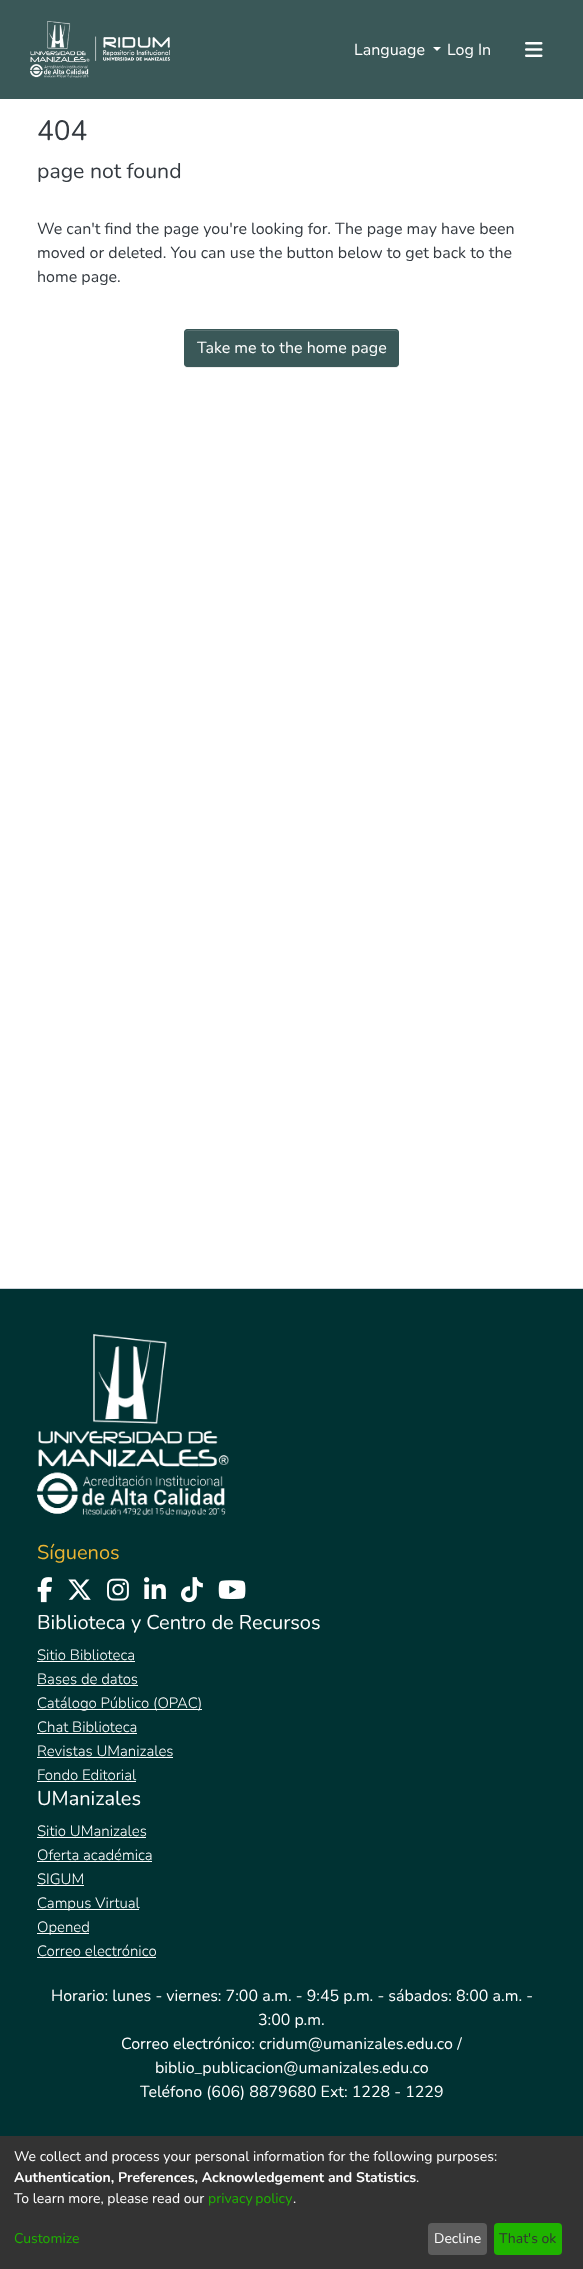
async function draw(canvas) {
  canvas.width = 583;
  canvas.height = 2269;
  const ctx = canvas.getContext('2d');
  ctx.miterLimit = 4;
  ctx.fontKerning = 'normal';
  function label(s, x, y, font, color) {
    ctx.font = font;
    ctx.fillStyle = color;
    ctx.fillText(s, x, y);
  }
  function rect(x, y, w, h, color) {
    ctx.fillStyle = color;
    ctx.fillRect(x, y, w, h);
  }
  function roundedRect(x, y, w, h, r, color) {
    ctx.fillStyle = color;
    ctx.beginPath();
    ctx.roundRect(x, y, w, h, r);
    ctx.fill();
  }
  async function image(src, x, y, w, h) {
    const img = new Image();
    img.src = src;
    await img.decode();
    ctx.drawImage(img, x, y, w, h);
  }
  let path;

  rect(0, 0, 583, 2269, '#fff');
  rect(0, 0, 583, 99, '#3a5858');
  await image('assets/img1.png', 30, 21, 140, 57);
  label('Language', 354, 55, '16px Nunito', '#fff');
  path = new Path2D('M433 47H441L437 51Z');
  ctx.fill(path);
  label('Log In', 447, 55, '16px Nunito', '#fff');
  await image('assets/img2.png', 525, 42, 18, 15);
  label('404', 37, 140, '28px Nunito', '#343a40');
  label('page not found', 37, 178, '21.25px Nunito', '#343a40');
  label('We can\'t find the page you\'re looking for. The page may have been', 37, 234, '16px Nunito', '#343a40');
  label('moved or deleted. You can use the button below to get back to the', 37, 258, '16px Nunito', '#343a40');
  label('home page.', 37, 282, '16px Nunito', '#343a40');
  ctx.fillStyle = '#00000012';
  ctx.filter = 'blur(0.5px)';
  ctx.beginPath();
  ctx.roundRect(184, 330, 215, 38, 4);
  ctx.fill();
  ctx.filter = 'none';
  roundedRect(184, 329, 215, 38, 4, '#3a5858');
  ctx.fillStyle = '#587171';
  path = new Path2D('M188 331H395C397 331 398 332 398 334V333C398 331 397 330 395 330H188C186 330 185 331 185 333V334C185 332 186 331 188 331Z');
  ctx.fill(path);
  ctx.beginPath();
  ctx.roundRect(184.5, 329.5, 214, 37, 3.5);
  ctx.strokeStyle = '#3a5858';
  ctx.stroke();
  label('Take me to the home page', 197, 353, '16px Nunito', '#fff');
  rect(0, 1289, 583, 847, '#003233');
  rect(0, 1288, 583, 1, '#ced4da');
  await image('assets/img3.png', 37, 1334, 192, 183);
  label('Síguenos', 37, 1559, '20px Nunito', '#ecb533');
  await image('assets/img4.png', 37, 1577, 15, 26);
  await image('assets/img5.png', 68, 1579, 23, 21);
  await image('assets/img6.png', 107, 1578, 22, 23);
  await image('assets/img7.png', 144, 1577, 22, 22);
  await image('assets/img8.png', 181, 1577, 22, 26);
  await image('assets/img9.png', 218, 1580, 28, 19);
  label('Biblioteca y Centro de Recursos', 37, 1629, '20px Nunito', '#fff');
  label('Sitio Biblioteca', 37, 1660, '300 15px Nunito', '#fff');
  rect(37, 1661, 98, 1, '#fff');
  label('Bases de datos', 37, 1684, '300 15px Nunito', '#fff');
  rect(37, 1685, 101, 1, '#fff');
  rect(37, 1709, 165, 1, '#fff');
  label('Catálogo Público (OPAC)', 37, 1708, '300 15px Nunito', '#fff');
  label('Chat Biblioteca', 37, 1732, '300 15px Nunito', '#fff');
  rect(37, 1733, 100, 1, '#fff');
  label('Revistas UManizales', 37, 1756, '300 15px Nunito', '#fff');
  rect(37, 1757, 136, 1, '#fff');
  label('Fondo Editorial', 37, 1780, '300 15px Nunito', '#fff');
  rect(37, 1781, 99, 1, '#fff');
  label('UManizales', 37, 1805, '20px Nunito', '#fff');
  label('Sitio UManizales', 37, 1836, '300 15px Nunito', '#fff');
  rect(37, 1837, 109, 1, '#fff');
  label('Oferta académica', 37, 1860, '300 15px Nunito', '#fff');
  rect(37, 1861, 115, 1, '#fff');
  label('SIGUM', 37, 1884, '300 15px Nunito', '#fff');
  rect(37, 1885, 47, 1, '#fff');
  rect(37, 1909, 102, 1, '#fff');
  label('Campus Virtual', 37, 1908, '300 15px Nunito', '#fff');
  rect(37, 1933, 52, 1, '#fff');
  label('Opened', 37, 1932, '300 15px Nunito', '#fff');
  label('Correo electrónico', 37, 1956, '300 15px Nunito', '#fff');
  rect(37, 1957, 119, 1, '#fff');
  label('Horario: lunes - viernes: 7:00 a.m. - 9:45 p.m. - sábados: 8:00 a.m. -', 51, 2001, '16px Nunito', '#fff');
  label('3:00 p.m.', 258, 2025, '16px Nunito', '#fff');
  label('Correo electrónico: cridum@umanizales.edu.co /', 121, 2049, '16px Nunito', '#fff');
  label('biblio_publicacion@umanizales.edu.co', 155, 2073, '16px Nunito', '#fff');
  label('Teléfono (606) 8879680 Ext: 1228 - 1229', 140, 2097, '16px Nunito', '#fff');
  rect(0, 2136, 583, 133, '#333');
  label('We collect and process your personal information for the following purposes:', 14, 2161, '14px Nunito', '#fff');
  label('Authentication, Preferences, Acknowledgement and Statistics', 14, 2182, 'bold 14px Nunito', '#fff');
  label('.', 416, 2182, '14px Nunito', '#fff');
  label('To learn more, please read our', 14, 2203, '14px Nunito', '#fff');
  ctx.wordSpacing = '-1px';
  label('privacy policy', 208, 2203, '14px Nunito', '#1fb300');
  ctx.wordSpacing = '0px';
  label('.', 293, 2203, '14px Nunito', '#fff');
  label('Customize', 14, 2243, '14px Nunito', '#1fb300');
  roundedRect(428, 2223, 59, 32, 4, '#5c5c5c');
  label('Decline', 434, 2243, '14px Nunito', '#fff');
  roundedRect(494, 2223, 68, 32, 4, '#1fb300');
  label('That\'s ok', 499, 2243, '14px Nunito', '#333');
}

draw(document.querySelector('canvas'));
